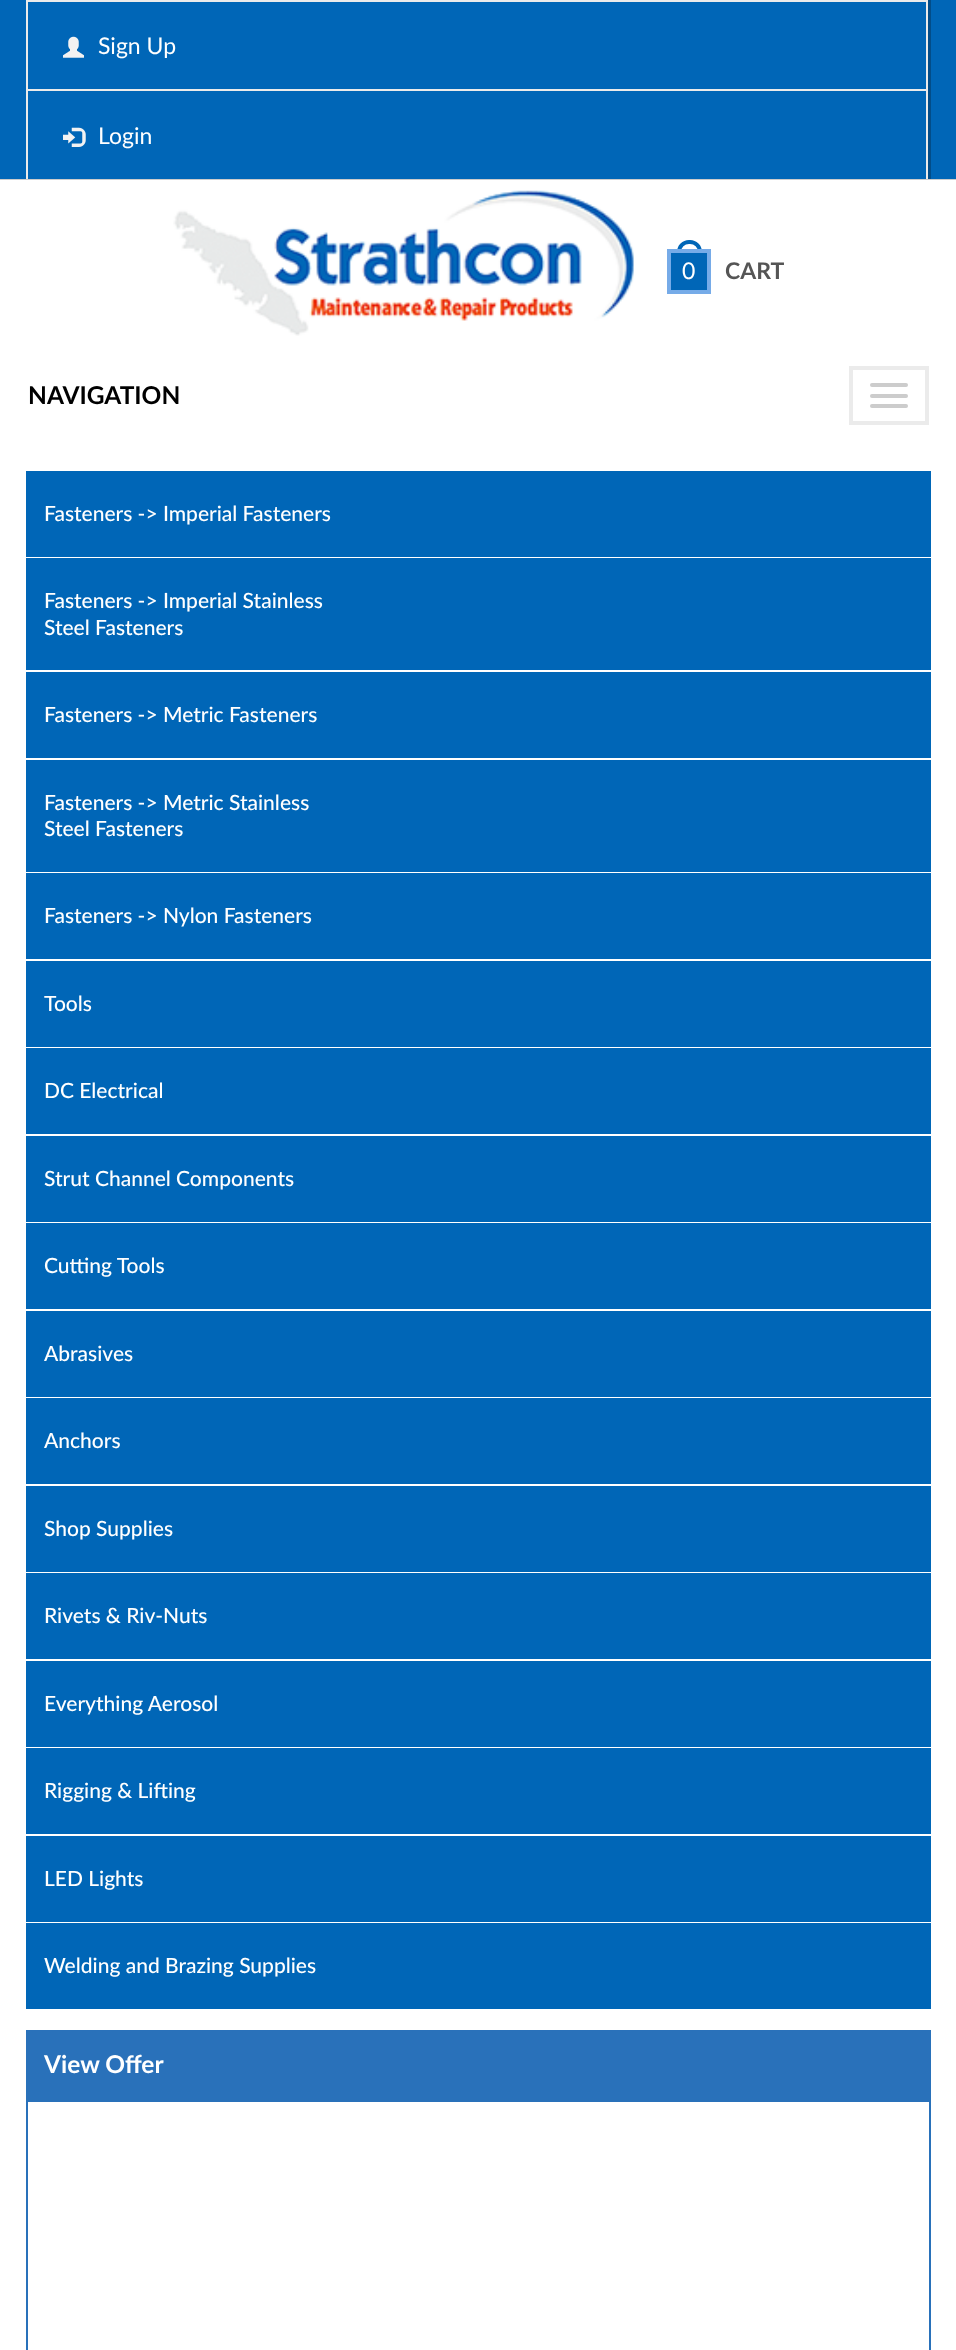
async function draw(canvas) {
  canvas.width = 956;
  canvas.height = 2350;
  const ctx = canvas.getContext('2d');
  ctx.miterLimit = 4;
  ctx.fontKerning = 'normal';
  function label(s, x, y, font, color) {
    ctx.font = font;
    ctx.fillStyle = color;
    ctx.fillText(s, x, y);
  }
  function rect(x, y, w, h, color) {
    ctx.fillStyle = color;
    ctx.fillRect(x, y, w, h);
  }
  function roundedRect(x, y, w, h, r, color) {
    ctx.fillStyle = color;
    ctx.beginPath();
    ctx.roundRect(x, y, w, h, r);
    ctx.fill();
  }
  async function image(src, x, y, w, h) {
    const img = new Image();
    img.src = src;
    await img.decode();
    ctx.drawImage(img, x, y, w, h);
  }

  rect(0, 0, 956, 2350, '#0066b7');
  rect(0, 179, 956, 1, '#ccc');
  rect(928, 0, 3, 179, '#024d89');
  rect(26, 0, 902, 2, '#ebebeb');
  rect(926, 0, 2, 89, '#ebebeb');
  rect(26, 0, 2, 89, '#ebebeb');
  await image('assets/img1.png', 63, 36, 21, 22);
  label('Sign Up', 98, 54, '23px Lato', '#fff');
  rect(26, 89, 902, 2, '#ebebeb');
  rect(926, 89, 2, 90, '#ebebeb');
  rect(26, 89, 2, 90, '#ebebeb');
  await image('assets/img2.png', 63, 127, 23, 20);
  label('Login', 98, 144, '23px Lato', '#fff');
  rect(0, 180, 956, 2170, '#fff');
  await image('assets/img3.png', 173, 190, 461, 146);
  ctx.beginPath();
  ctx.roundRect(679, 242, 21, 20, 10);
  ctx.strokeStyle = '#0066b7';
  ctx.lineWidth = 4;
  ctx.stroke();
  ctx.fillStyle = '#0066b7';
  ctx.beginPath();
  ctx.rect(669, 251, 40, 41);
  ctx.fill();
  ctx.strokeStyle = '#76abe8';
  ctx.stroke();
  label('0', 682, 279, '23px Lato', '#fff');
  label('CART', 725, 279, 'bold 23px Lato', '#555');
  label('NAVIGATION', 28, 404, 'bold 24.5px Lato', '#000');
  ctx.strokeStyle = '#ebebeb';
  ctx.strokeRect(851, 368, 76, 55);
  roundedRect(870, 383, 38, 4, 2, '#ccc');
  roundedRect(870, 394, 38, 4, 2, '#ccc');
  roundedRect(870, 404, 38, 4, 2, '#ccc');
  rect(26, 471, 905, 86, '#0066b7');
  label('Fasteners -> Imperial Fasteners', 44, 521, '500 21px Lato', '#fff');
  rect(26, 558, 905, 112, '#0066b7');
  label('Fasteners -> Imperial Stainless', 44, 608, '500 21px Lato', '#fff');
  label('Steel Fasteners', 44, 635, '500 21px Lato', '#fff');
  rect(26, 672, 905, 86, '#0066b7');
  label('Fasteners -> Metric Fasteners', 44, 722, '500 21px Lato', '#fff');
  rect(26, 760, 905, 112, '#0066b7');
  label('Fasteners -> Metric Stainless', 44, 810, '500 21px Lato', '#fff');
  label('Steel Fasteners', 44, 836, '500 21px Lato', '#fff');
  rect(26, 873, 905, 86, '#0066b7');
  label('Fasteners -> Nylon Fasteners', 44, 923, '500 21px Lato', '#fff');
  rect(26, 961, 905, 86, '#0066b7');
  label('Tools', 44, 1011, '500 21px Lato', '#fff');
  rect(26, 1048, 905, 86, '#0066b7');
  label('DC Electrical', 44, 1098, '500 21px Lato', '#fff');
  rect(26, 1136, 905, 86, '#0066b7');
  label('Strut Channel Components', 44, 1186, '500 21px Lato', '#fff');
  rect(26, 1223, 905, 86, '#0066b7');
  label('Cutting Tools', 44, 1273, '500 21px Lato', '#fff');
  rect(26, 1311, 905, 86, '#0066b7');
  label('Abrasives', 44, 1361, '500 21px Lato', '#fff');
  rect(26, 1398, 905, 86, '#0066b7');
  label('Anchors', 44, 1448, '500 21px Lato', '#fff');
  rect(26, 1486, 905, 86, '#0066b7');
  label('Shop Supplies', 44, 1536, '500 21px Lato', '#fff');
  rect(26, 1573, 905, 86, '#0066b7');
  label('Rivets & Riv-Nuts', 44, 1623, '500 21px Lato', '#fff');
  rect(26, 1661, 905, 86, '#0066b7');
  label('Everything Aerosol', 44, 1711, '500 21px Lato', '#fff');
  rect(26, 1748, 905, 86, '#0066b7');
  label('Rigging & Lifting', 44, 1798, '500 21px Lato', '#fff');
  rect(26, 1836, 905, 86, '#0066b7');
  label('LED Lights', 44, 1886, '500 21px Lato', '#fff');
  rect(26, 1923, 905, 86, '#0066b7');
  label('Welding and Brazing Supplies', 44, 1973, '500 21px Lato', '#fff');
  rect(26, 2030, 905, 70, '#2971ba');
  label('View Offer', 44, 2073, 'bold 24.5px Lato', '#fff');
  ctx.strokeStyle = '#2971ba';
  ctx.lineWidth = 2;
  ctx.strokeRect(27, 2101, 903, 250);
}

draw(document.querySelector('canvas'));
